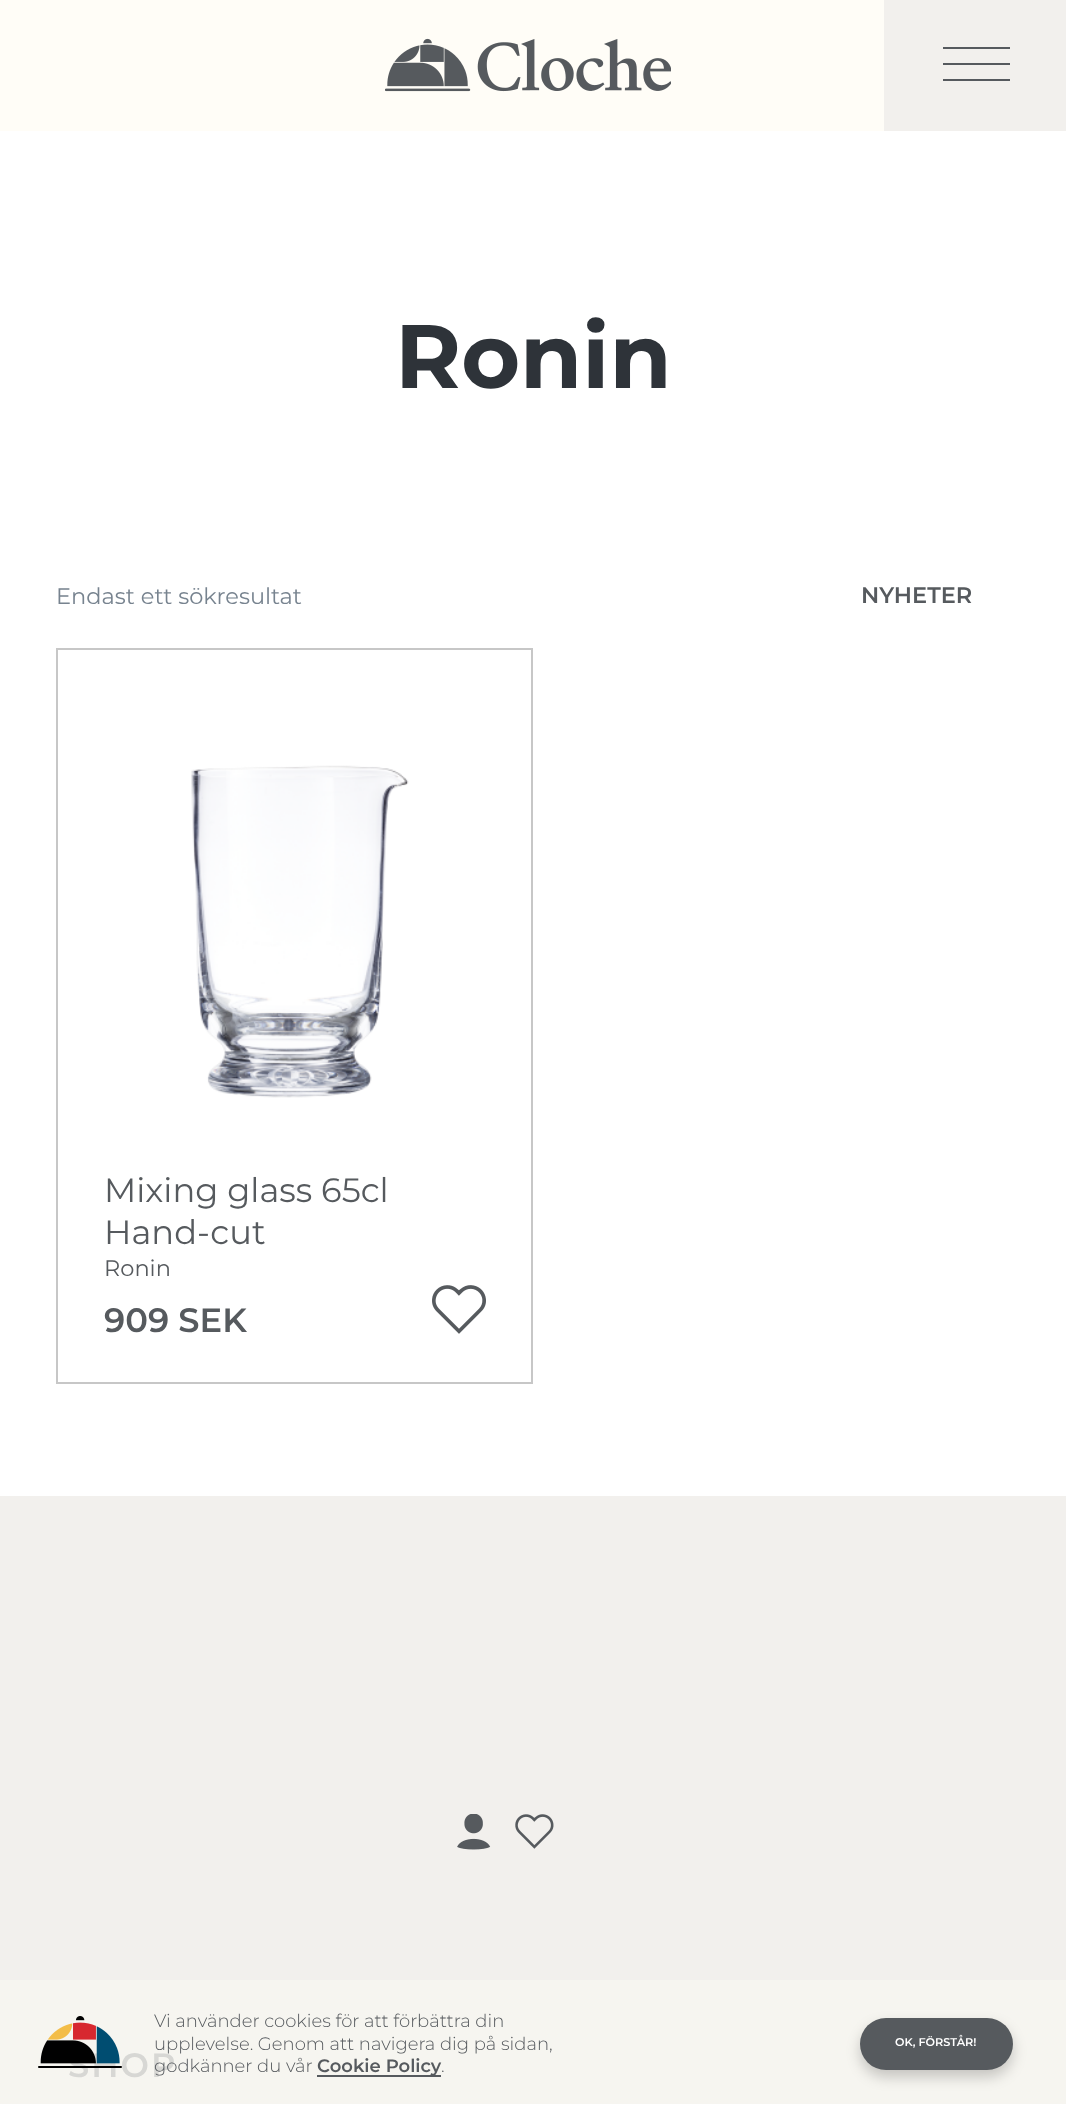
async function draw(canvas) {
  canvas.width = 1066;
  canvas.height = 2104;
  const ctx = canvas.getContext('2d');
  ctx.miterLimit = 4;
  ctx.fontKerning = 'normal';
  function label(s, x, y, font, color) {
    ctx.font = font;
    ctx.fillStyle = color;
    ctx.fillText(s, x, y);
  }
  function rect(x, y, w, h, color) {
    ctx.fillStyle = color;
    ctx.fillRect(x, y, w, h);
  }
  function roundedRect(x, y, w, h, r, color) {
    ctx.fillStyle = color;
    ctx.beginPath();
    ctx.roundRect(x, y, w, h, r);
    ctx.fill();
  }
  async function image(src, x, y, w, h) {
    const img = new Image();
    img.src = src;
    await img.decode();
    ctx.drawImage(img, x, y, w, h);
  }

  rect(0, 0, 1066, 2104, '#fff');
  rect(0, 0, 884, 131, '#fffdf7');
  await image('assets/img1.png', 385, 38, 286, 54);
  rect(884, 0, 182, 131, '#f2f0ed');
  rect(943, 47, 67, 2, '#565a5e');
  rect(943, 63, 67, 2, '#565a5e');
  rect(943, 79, 67, 2, '#565a5e');
  label('Ronin', 395, 388, 'bold 90px Montserrat', '#2e3339');
  label('Endast ett sökresultat', 56, 604, '22.5px Montserrat', '#77838f');
  label('NYHETER', 861, 603, '600 22.5px Montserrat', '#565a5e');
  await image('assets/img2.png', 191, 765, 218, 333);
  ctx.strokeStyle = '#c7c7c7';
  ctx.lineWidth = 2;
  ctx.strokeRect(57, 649, 475, 734);
  label('Mixing glass 65cl', 104, 1202, '33.75px Montserrat', '#565a5e');
  label('Hand-cut', 104, 1244, '33.75px Montserrat', '#565a5e');
  label('Ronin', 104, 1276, '22.5px Montserrat', '#565a5e');
  label('909 SEK', 104, 1332, '600 33.75px Montserrat', '#565a5e');
  await image('assets/img3.png', 432, 1285, 54, 49);
  rect(0, 1496, 1066, 484, '#f2f0ed');
  rect(0, 1980, 1066, 124, '#f6f5f0');
  await image('assets/img4.png', 457, 1814, 34, 36);
  await image('assets/img5.png', 515, 1814, 39, 35);
  ctx.letterSpacing = '2px';
  label('SHOP', 68, 2077, '600 33.75px Montserrat', '#d7d7d4');
  await image('assets/img6.png', 38, 2016, 84, 52);
  ctx.letterSpacing = '0px';
  label('Vi använder cookies för att förbättra din', 154, 2027, '300 18px Montserrat', '#565a5e');
  label('upplevelse. Genom att navigera dig på sidan,', 154, 2050, '300 18px Montserrat', '#565a5e');
  label('godkänner du vår', 154, 2072, '300 18px Montserrat', '#565a5e');
  rect(317, 2075, 124, 2, '#565a5e');
  label('Cookie Policy', 317, 2072, '600 18px Montserrat', '#565a5e');
  label('.', 441, 2072, '300 18px Montserrat', '#565a5e');
  ctx.fillStyle = '#00000033';
  ctx.filter = 'blur(7px)';
  ctx.beginPath();
  ctx.roundRect(860, 2025, 153, 52, 26);
  ctx.fill();
  ctx.filter = 'none';
  roundedRect(860, 2018, 153, 52, 26, '#565a5e');
  label('OK, FÖRSTÅR!', 895, 2046, '600 11.25px Montserrat', '#fff');
}

draw(document.querySelector('canvas'));
